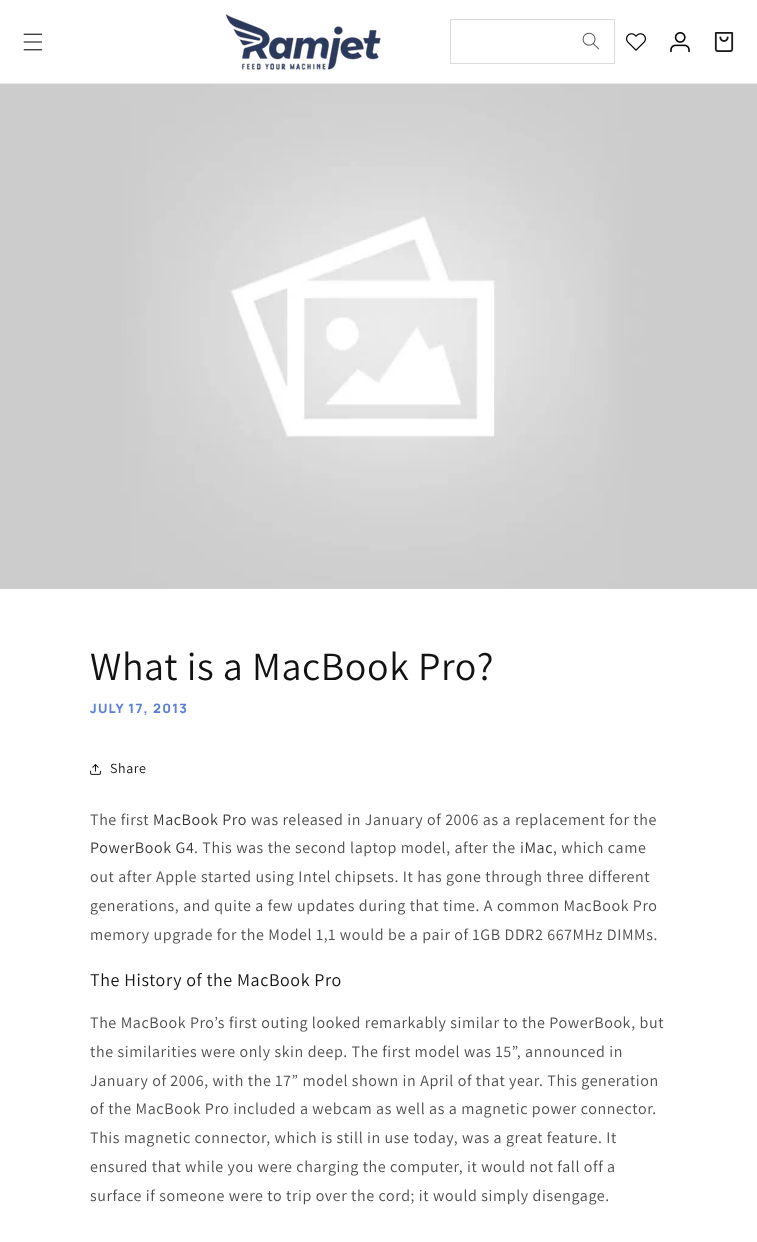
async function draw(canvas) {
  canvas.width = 757;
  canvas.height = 1242;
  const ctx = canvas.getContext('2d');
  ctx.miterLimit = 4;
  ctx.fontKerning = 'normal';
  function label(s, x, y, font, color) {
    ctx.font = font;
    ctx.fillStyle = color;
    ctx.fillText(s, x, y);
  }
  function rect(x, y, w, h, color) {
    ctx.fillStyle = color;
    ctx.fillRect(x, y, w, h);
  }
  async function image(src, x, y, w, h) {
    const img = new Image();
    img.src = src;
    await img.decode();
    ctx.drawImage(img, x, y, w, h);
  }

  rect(0, 0, 757, 1242, '#fff');
  rect(0, 83, 757, 1, '#ececec');
  await image('assets/img1.png', 23, 33, 20, 18);
  await image('assets/img2.png', 225, 14, 156, 56);
  ctx.strokeStyle = '#dbdbdb';
  ctx.strokeRect(450.5, 19.5, 164, 44);
  await image('assets/img3.png', 582, 32, 17, 18);
  await image('assets/img4.png', 626, 33, 20, 18);
  await image('assets/img5.png', 670, 32, 20, 20);
  await image('assets/img6.png', 714, 32, 20, 20);
  await image('assets/img7.png', 0, 84, 757, 505);
  ctx.letterSpacing = '0.6px';
  label('What is a MacBook Pro?', 90, 680, '40px Assistant', '#121212');
  ctx.letterSpacing = '1.25px';
  label('JULY 17, 2013', 90, 713, '800 13px Manrope', '#5b7fda');
  await image('assets/img8.png', 90, 764, 11, 11);
  ctx.letterSpacing = '0.6px';
  label('Share', 110, 773, '14px Assistant', '#121212');
  label('The first', 90, 825, '16px Assistant', '#4d4d4d');
  label('MacBook Pro', 153, 825, '16px Assistant', '#363636');
  label('was released in January of 2006 as a replacement for the', 251, 825, '16px Assistant', '#4d4d4d');
  label('PowerBook G4', 90, 853, '16px Assistant', '#363636');
  label('. This was the second laptop model, after the', 194, 853, '16px Assistant', '#4d4d4d');
  label('iMac', 520, 853, '16px Assistant', '#363636');
  label(', which came', 553, 853, '16px Assistant', '#4d4d4d');
  label('out after Apple started using Intel chipsets. It has gone through three different', 90, 882, '16px Assistant', '#4d4d4d');
  label('generations, and quite a few updates during that time. A common MacBook Pro', 90, 911, '16px Assistant', '#4d4d4d');
  label('memory upgrade for the Model 1,1 would be a pair of 1GB DDR2 667MHz DIMMs.', 90, 940, '16px Assistant', '#4d4d4d');
  label('The History of the MacBook Pro', 90, 986, '18px Assistant', '#121212');
  label('The MacBook Pro’s first outing looked remarkably similar to the PowerBook, but', 90, 1028, '16px Assistant', '#4d4d4d');
  label('the similarities were only skin deep. The first model was 15”, announced in', 90, 1057, '16px Assistant', '#4d4d4d');
  label('January of 2006, with the 17” model shown in April of that year. This generation', 90, 1086, '16px Assistant', '#4d4d4d');
  label('of the MacBook Pro included a webcam as well as a magnetic power connector.', 90, 1114, '16px Assistant', '#4d4d4d');
  label('This magnetic connector, which is still in use today, was a great feature. It', 90, 1143, '16px Assistant', '#4d4d4d');
  label('ensured that while you were charging the computer, it would not fall off a', 90, 1172, '16px Assistant', '#4d4d4d');
  label('surface if someone were to trip over the cord; it would simply disengage.', 90, 1201, '16px Assistant', '#4d4d4d');
}

draw(document.querySelector('canvas'));
